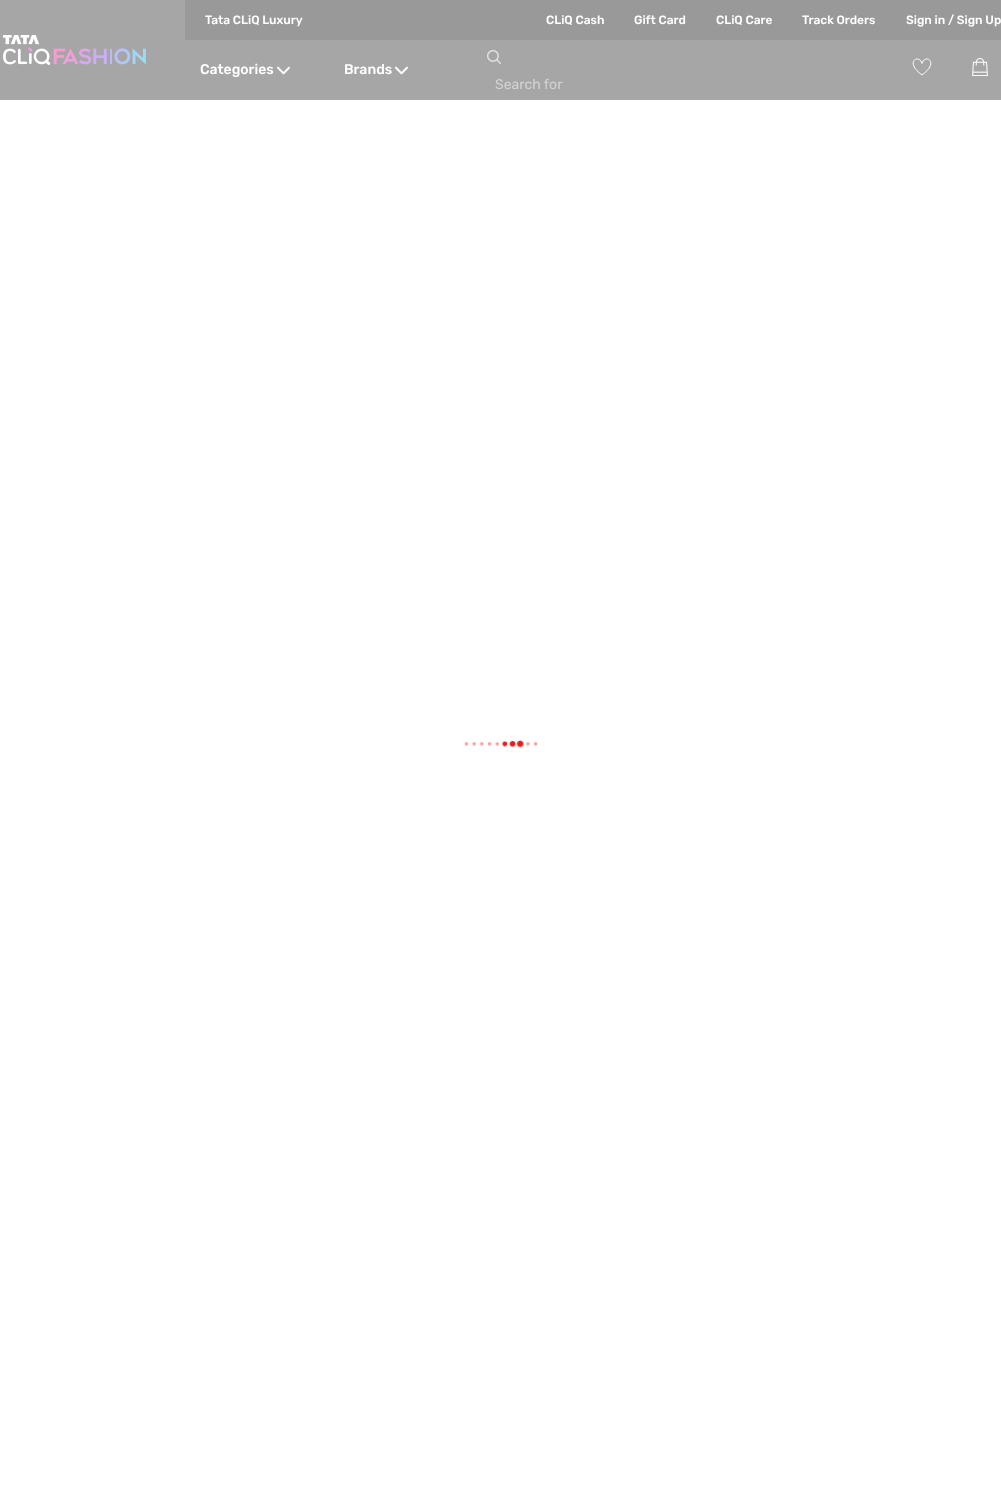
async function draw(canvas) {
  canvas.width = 1001;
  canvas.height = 1488;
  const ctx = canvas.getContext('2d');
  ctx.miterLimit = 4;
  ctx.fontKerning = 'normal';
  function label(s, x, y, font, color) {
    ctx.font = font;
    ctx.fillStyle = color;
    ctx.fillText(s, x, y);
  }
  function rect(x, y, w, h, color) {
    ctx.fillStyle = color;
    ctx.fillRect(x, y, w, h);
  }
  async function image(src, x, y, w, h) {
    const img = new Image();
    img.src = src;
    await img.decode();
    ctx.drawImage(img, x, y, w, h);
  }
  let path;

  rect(0, 0, 1001, 1488, '#fff');
  rect(0, 0, 1001, 100, '#a6a6a6');
  await image('assets/img1.png', 3, 35, 143, 30);
  rect(185, 0, 816, 40, '#999');
  label('Tata CLiQ Luxury', 205, 24, '500 12px Rubik', '#fff');
  label('CLiQ Cash', 546, 24, '500 12px Rubik', '#fff');
  label('Gift Card', 634, 24, '500 12px Rubik', '#fff');
  label('CLiQ Care', 716, 24, '500 12px Rubik', '#fff');
  label('Track Orders', 802, 24, '500 12px Rubik', '#fff');
  label('Sign in / Sign Up', 906, 24, '500 12px Rubik', '#fff');
  label('Categories', 200, 74, '500 14px Rubik', '#fff');
  await image('assets/img2.png', 277, 66, 13, 9);
  label('Brands', 344, 74, '500 14px Rubik', '#fff');
  await image('assets/img2.png', 395, 66, 13, 9);
  path = new Path2D('M922 75C940.5 61.5 924.5 53.5 922 63.5C919.5 53.5 903.5 61.5 922 75Z');
  ctx.strokeStyle = '#fff';
  ctx.lineJoin = 'round';
  ctx.stroke(path);
  await image('assets/img3.png', 972, 58, 16, 18);
  await image('assets/img4.png', 487, 50, 14, 14);
  label('Search for', 495, 89, '300 14px Rubik', '#d3d3d3');
  await image('assets/img5.png', 464, 740, 74, 8);
}

draw(document.querySelector('canvas'));
